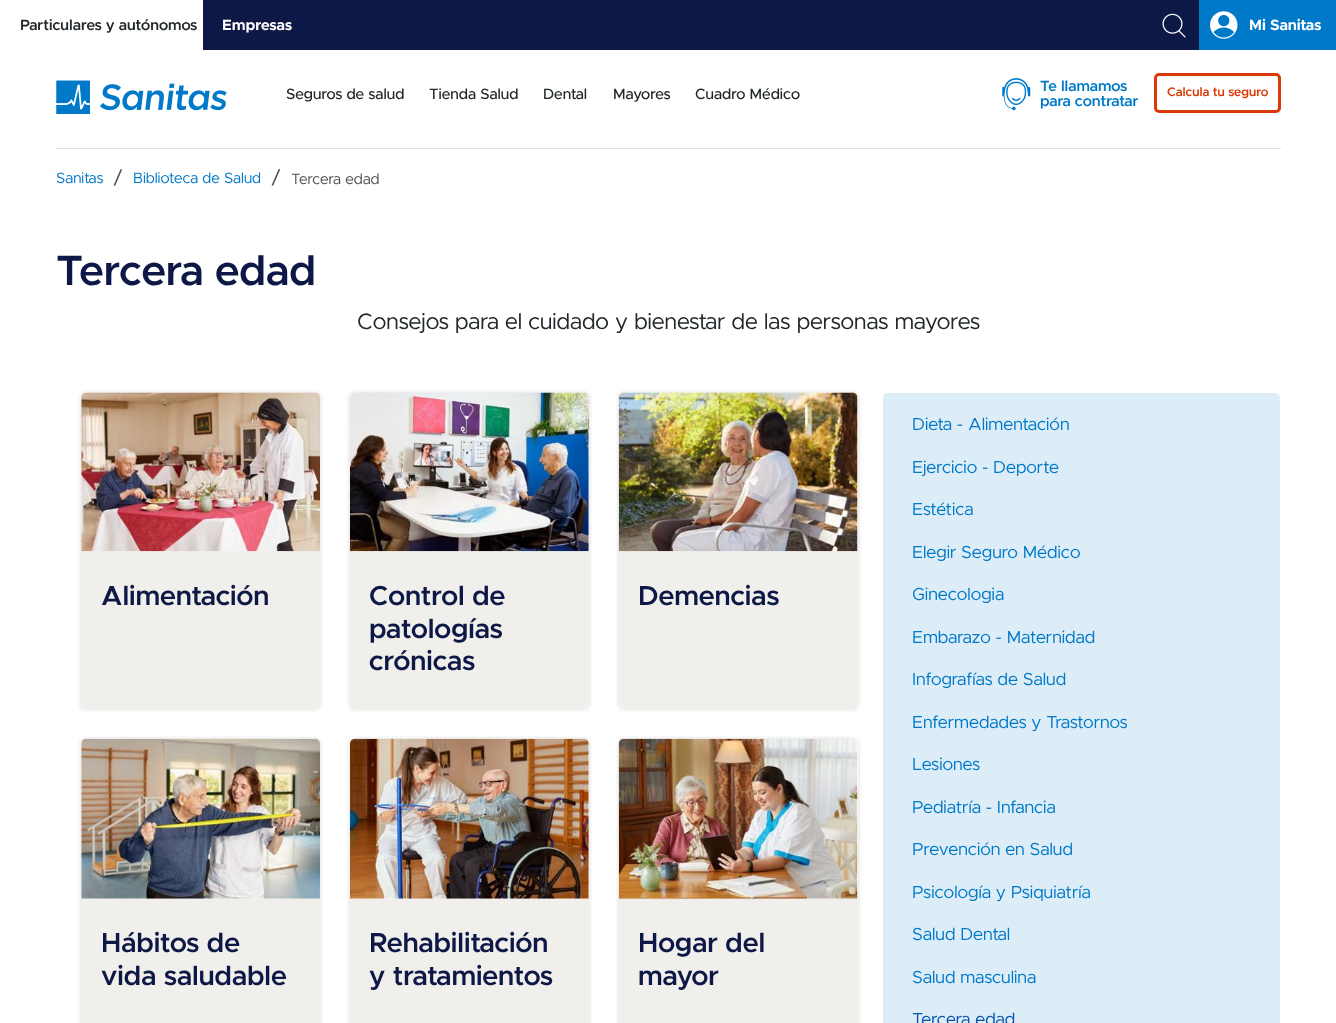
async function draw(canvas) {
  canvas.width = 1336;
  canvas.height = 1023;
  const ctx = canvas.getContext('2d');
  ctx.miterLimit = 4;
  ctx.fontKerning = 'normal';
  function label(s, x, y, font, color) {
    ctx.font = font;
    ctx.fillStyle = color;
    ctx.fillText(s, x, y);
  }
  function rect(x, y, w, h, color) {
    ctx.fillStyle = color;
    ctx.fillRect(x, y, w, h);
  }
  function roundedRect(x, y, w, h, r, color) {
    ctx.fillStyle = color;
    ctx.beginPath();
    ctx.roundRect(x, y, w, h, r);
    ctx.fill();
  }
  async function image(src, x, y, w, h) {
    const img = new Image();
    img.src = src;
    await img.decode();
    ctx.drawImage(img, x, y, w, h);
  }

  rect(0, 0, 1336, 1023, '#fff');
  rect(203, 0, 996, 50, '#0d1846');
  label('Particulares y autónomos', 20, 30, '600 15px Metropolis', '#21272a');
  label('Empresas', 222, 30, 'bold 15px Metropolis', '#fff');
  await image('assets/img1.png', 1162, 13, 24, 25);
  rect(1199, 0, 137, 50, '#0079c8');
  await image('assets/img2.png', 1210, 11, 28, 28);
  label('Mi Sanitas', 1249, 30, 'bold 15px Metropolis', '#fff');
  await image('assets/img3.png', 56, 80, 171, 34);
  label('Seguros de salud', 286, 99, '500 15px Metropolis', '#21272a');
  label('Tienda Salud', 429, 99, '500 15px Metropolis', '#21272a');
  label('Dental', 543, 99, '500 15px Metropolis', '#21272a');
  label('Mayores', 613, 99, '500 15px Metropolis', '#21272a');
  label('Cuadro Médico', 695, 99, '500 15px Metropolis', '#21272a');
  await image('assets/img4.png', 1002, 78, 29, 33);
  label('Te llamamos', 1040, 91, '600 15px Metropolis', '#0079c8');
  label('para contratar', 1040, 106, '600 15px Metropolis', '#0079c8');
  ctx.beginPath();
  ctx.roundRect(1155.5, 74.5, 124, 37, 3.5);
  ctx.strokeStyle = '#db3907';
  ctx.lineWidth = 3;
  ctx.stroke();
  label('Calcula tu seguro', 1167, 96, '600 12.5px Metropolis', '#db3907');
  rect(56, 148, 1225, 1, '#dde1e6');
  label('Sanitas', 56, 183, '15px Metropolis', '#0079c8');
  label('/', 113, 184, '20px Metropolis', '#4e5357');
  label('Biblioteca de Salud', 133, 183, '15px Metropolis', '#0079c8');
  label('/', 271, 184, '20px Metropolis', '#4e5357');
  label('Tercera edad', 291, 184, '15px Metropolis', '#4e5357');
  label('Tercera edad', 56, 285, '600 42.5px Metropolis', '#0d1846');
  label('Consejos para el cuidado y bienestar de las personas mayores', 357, 329, '22.5px Metropolis', '#21272a');
  ctx.fillStyle = '#00000026';
  ctx.filter = 'blur(2.5px)';
  ctx.beginPath();
  ctx.roundRect(81, 393, 239, 316, 5);
  ctx.fill();
  ctx.filter = 'none';
  roundedRect(81, 393, 239, 316, 5, '#fff');
  ctx.fillStyle = '#f1efeb';
  ctx.beginPath();
  ctx.roundRect(81, 551, 239, 158, [0, 0, 5, 5]);
  ctx.fill();
  await image('assets/img5.png', 81, 392, 239, 160);
  label('Alimentación', 101, 605, '600 27.5px Metropolis', '#0d1846');
  ctx.fillStyle = '#00000026';
  ctx.filter = 'blur(2.5px)';
  ctx.beginPath();
  ctx.roundRect(350, 393, 239, 316, 5);
  ctx.fill();
  ctx.filter = 'none';
  roundedRect(350, 393, 239, 316, 5, '#fff');
  ctx.fillStyle = '#f1efeb';
  ctx.beginPath();
  ctx.roundRect(350, 551, 239, 158, [0, 0, 5, 5]);
  ctx.fill();
  await image('assets/img6.png', 350, 392, 239, 160);
  label('Control de', 369, 605, '600 27.5px Metropolis', '#0d1846');
  label('patologías', 369, 638, '600 27.5px Metropolis', '#0d1846');
  label('crónicas', 369, 670, '600 27.5px Metropolis', '#0d1846');
  ctx.fillStyle = '#00000026';
  ctx.filter = 'blur(2.5px)';
  ctx.beginPath();
  ctx.roundRect(619, 393, 239, 316, 5);
  ctx.fill();
  ctx.filter = 'none';
  roundedRect(619, 393, 239, 316, 5, '#fff');
  ctx.fillStyle = '#f1efeb';
  ctx.beginPath();
  ctx.roundRect(619, 551, 239, 158, [0, 0, 5, 5]);
  ctx.fill();
  await image('assets/img7.png', 618, 392, 240, 160);
  label('Demencias', 638, 605, '600 27.5px Metropolis', '#0d1846');
  ctx.fillStyle = '#00000026';
  ctx.filter = 'blur(2.5px)';
  ctx.beginPath();
  ctx.roundRect(81, 739, 239, 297, 5);
  ctx.fill();
  ctx.filter = 'none';
  roundedRect(81, 739, 239, 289, 5, '#fff');
  await image('assets/img8.png', 81, 738, 239, 161);
  rect(81, 899, 239, 124, '#f1efeb');
  label('Hábitos de', 101, 952, '600 27.5px Metropolis', '#0d1846');
  label('vida saludable', 101, 985, '600 27.5px Metropolis', '#0d1846');
  ctx.fillStyle = '#00000026';
  ctx.filter = 'blur(2.5px)';
  ctx.beginPath();
  ctx.roundRect(350, 739, 239, 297, 5);
  ctx.fill();
  ctx.filter = 'none';
  roundedRect(350, 739, 239, 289, 5, '#fff');
  await image('assets/img9.png', 350, 738, 239, 161);
  rect(350, 899, 239, 124, '#f1efeb');
  label('Rehabilitación', 369, 952, '600 27.5px Metropolis', '#0d1846');
  label('y tratamientos', 369, 985, '600 27.5px Metropolis', '#0d1846');
  ctx.fillStyle = '#00000026';
  ctx.filter = 'blur(2.5px)';
  ctx.beginPath();
  ctx.roundRect(619, 739, 239, 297, 5);
  ctx.fill();
  ctx.filter = 'none';
  roundedRect(619, 739, 239, 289, 5, '#fff');
  await image('assets/img10.png', 618, 738, 240, 161);
  rect(619, 899, 239, 124, '#f1efeb');
  label('Hogar del', 638, 952, '600 27.5px Metropolis', '#0d1846');
  label('mayor', 638, 985, '600 27.5px Metropolis', '#0d1846');
  roundedRect(883, 393, 397, 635, 5, '#ddedf8');
  label('Dieta - Alimentación', 912, 430, '17.5px Metropolis', '#0079c8');
  label('Ejercicio - Deporte', 912, 473, '17.5px Metropolis', '#0079c8');
  label('Estética', 912, 515, '17.5px Metropolis', '#0079c8');
  label('Elegir Seguro Médico', 912, 558, '17.5px Metropolis', '#0079c8');
  label('Ginecologia', 912, 600, '17.5px Metropolis', '#0079c8');
  label('Embarazo - Maternidad', 912, 643, '17.5px Metropolis', '#0079c8');
  label('Infografías de Salud', 912, 685, '17.5px Metropolis', '#0079c8');
  label('Enfermedades y Trastornos', 912, 728, '17.5px Metropolis', '#0079c8');
  label('Lesiones', 912, 770, '17.5px Metropolis', '#0079c8');
  label('Pediatría - Infancia', 912, 813, '17.5px Metropolis', '#0079c8');
  label('Prevención en Salud', 912, 855, '17.5px Metropolis', '#0079c8');
  label('Psicología y Psiquiatría', 912, 898, '17.5px Metropolis', '#0079c8');
  label('Salud Dental', 912, 940, '17.5px Metropolis', '#0079c8');
  label('Salud masculina', 912, 983, '17.5px Metropolis', '#0079c8');
  label('Tercera edad', 912, 1025, '17.5px Metropolis', '#0652ae');
}

draw(document.querySelector('canvas'));
